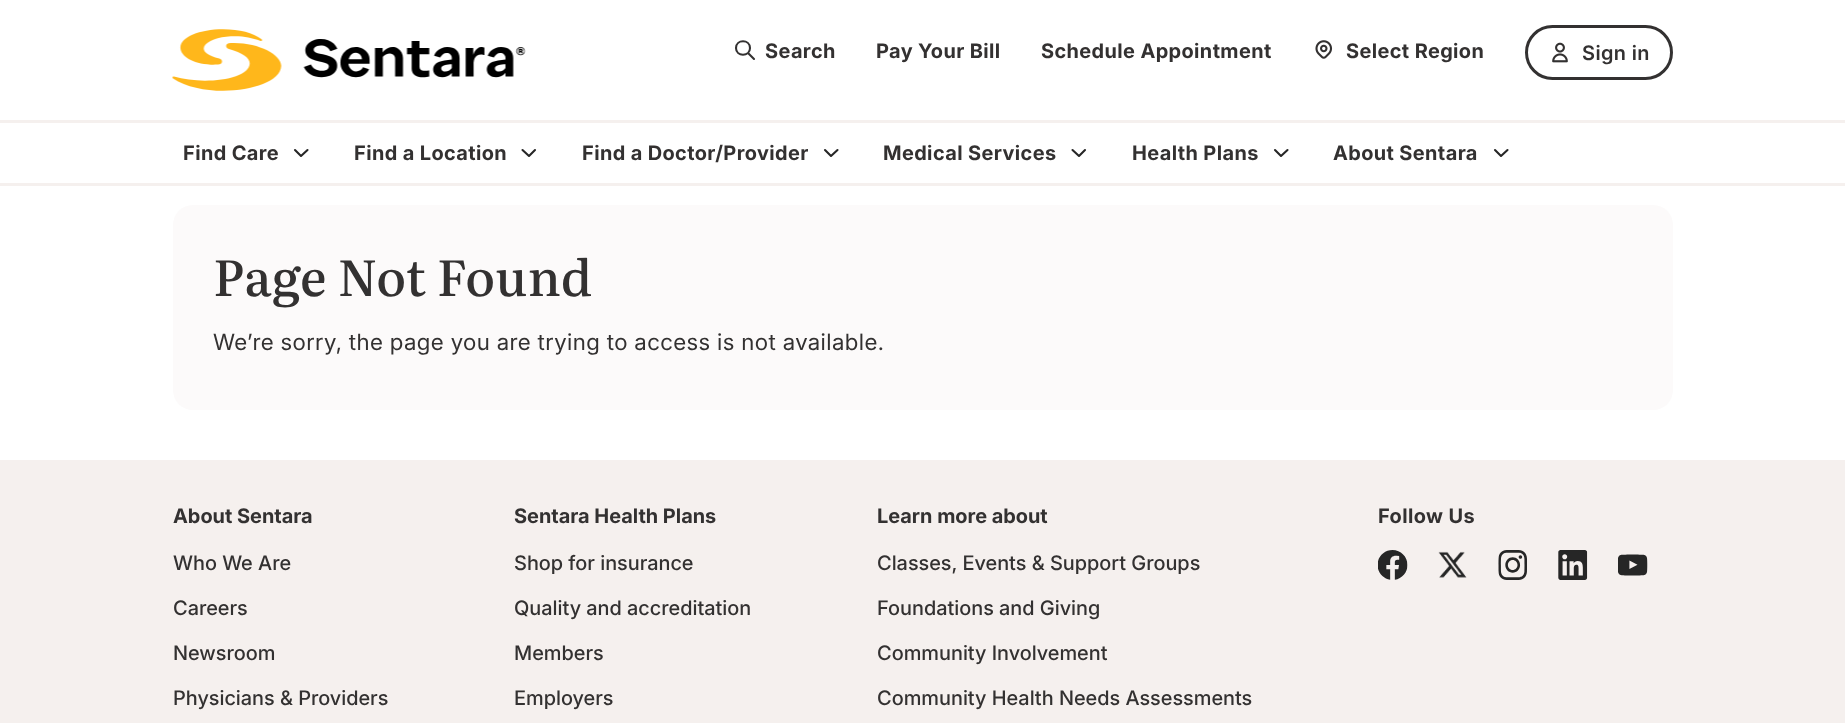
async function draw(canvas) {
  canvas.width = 1845;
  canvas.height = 723;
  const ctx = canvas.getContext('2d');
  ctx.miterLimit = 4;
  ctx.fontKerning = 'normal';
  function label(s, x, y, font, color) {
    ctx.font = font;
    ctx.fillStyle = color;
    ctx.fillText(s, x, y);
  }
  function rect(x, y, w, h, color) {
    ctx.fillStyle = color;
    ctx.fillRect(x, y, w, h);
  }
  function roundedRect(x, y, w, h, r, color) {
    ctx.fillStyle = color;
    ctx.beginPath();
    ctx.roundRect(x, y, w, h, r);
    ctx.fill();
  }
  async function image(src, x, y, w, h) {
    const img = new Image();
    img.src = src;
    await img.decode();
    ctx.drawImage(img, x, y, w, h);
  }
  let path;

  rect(0, 0, 1845, 723, '#fff');
  rect(0, 120, 1845, 3, '#f5f0ee');
  await image('assets/img1.png', 172, 29, 354, 62);
  path = new Path2D('M754 59L748 53M750 48C750 57 736 57 736 48C736 39 750 39 750 48Z');
  ctx.strokeStyle = '#333131';
  ctx.lineWidth = 2.1;
  ctx.lineCap = 'round';
  ctx.lineJoin = 'round';
  ctx.stroke(path);
  ctx.letterSpacing = '0.4px';
  label('Search', 765, 58, 'bold 20px Inter', '#333131');
  label('Pay Your Bill', 876, 58, 'bold 20px Inter', '#333131');
  label('Schedule Appointment', 1041, 58, 'bold 20px Inter', '#333131');
  await image('assets/img2.png', 1315, 40, 18, 19);
  label('Select Region', 1346, 58, 'bold 20px Inter', '#333131');
  ctx.beginPath();
  ctx.roundRect(1526.5, 26.5, 145, 52, 26);
  ctx.lineWidth = 3;
  ctx.lineJoin = 'miter';
  ctx.stroke();
  await image('assets/img3.png', 1552, 42, 16, 21);
  label('Sign in', 1582, 60, '600 20px Inter', '#333131');
  rect(0, 183, 1845, 3, '#f5f0ee');
  label('Find Care', 183, 160, 'bold 20px Inter', '#333131');
  path = new Path2D('M307.5 150L301 156L295 150');
  ctx.strokeStyle = '#262626';
  ctx.lineWidth = 2.1;
  ctx.lineJoin = 'round';
  ctx.stroke(path);
  label('Find a Location', 354, 160, 'bold 20px Inter', '#333131');
  path = new Path2D('M535 150L529 156L522.5 150');
  ctx.stroke(path);
  label('Find a Doctor/Provider', 582, 160, 'bold 20px Inter', '#333131');
  path = new Path2D('M837.5 150L831 156L825 150');
  ctx.stroke(path);
  label('Medical Services', 883, 160, 'bold 20px Inter', '#333131');
  path = new Path2D('M1085 150L1079 156L1072.5 150');
  ctx.stroke(path);
  label('Health Plans', 1132, 160, 'bold 20px Inter', '#333131');
  path = new Path2D('M1287.5 150L1281 156L1275 150');
  ctx.stroke(path);
  label('About Sentara', 1333, 160, 'bold 20px Inter', '#333131');
  path = new Path2D('M1507.5 150L1501 156L1495 150');
  ctx.stroke(path);
  roundedRect(173, 205, 1500, 205, 20, '#fcfafa');
  label('Page Not Found', 213, 296, '500 50px Literata', '#333131');
  label('We’re sorry, the page you are trying to access is not available.', 213, 350, '22.5px Inter', '#333131');
  rect(0, 460, 1845, 263, '#f5f0ee');
  ctx.letterSpacing = '0px';
  label('About Sentara', 173, 523, 'bold 20px Inter', '#333131');
  label('Who We Are', 173, 570, '500 20px Inter', '#333131');
  label('Careers', 173, 615, '500 20px Inter', '#333131');
  label('Newsroom', 173, 660, '500 20px Inter', '#333131');
  label('Physicians & Providers', 173, 705, '500 20px Inter', '#333131');
  label('Sentara Health Plans', 514, 523, 'bold 20px Inter', '#333131');
  label('Shop for insurance', 514, 570, '500 20px Inter', '#333131');
  label('Quality and accreditation', 514, 615, '500 20px Inter', '#333131');
  label('Members', 514, 660, '500 20px Inter', '#333131');
  label('Employers', 514, 705, '500 20px Inter', '#333131');
  label('Learn more about', 877, 523, 'bold 20px Inter', '#333131');
  label('Classes, Events & Support Groups', 877, 570, '500 20px Inter', '#333131');
  label('Foundations and Giving', 877, 615, '500 20px Inter', '#333131');
  label('Community Involvement', 877, 660, '500 20px Inter', '#333131');
  label('Community Health Needs Assessments', 877, 705, '500 20px Inter', '#333131');
  ctx.letterSpacing = '0.4px';
  label('Follow Us', 1378, 523, 'bold 20px Inter', '#333131');
  await image('assets/img4.png', 1378, 550, 30, 30);
  await image('assets/img5.png', 1438, 551, 29, 27);
  await image('assets/img6.png', 1498, 550, 29, 30);
  await image('assets/img7.png', 1558, 550, 30, 30);
  await image('assets/img8.png', 1618, 554, 30, 22);
}

draw(document.querySelector('canvas'));
